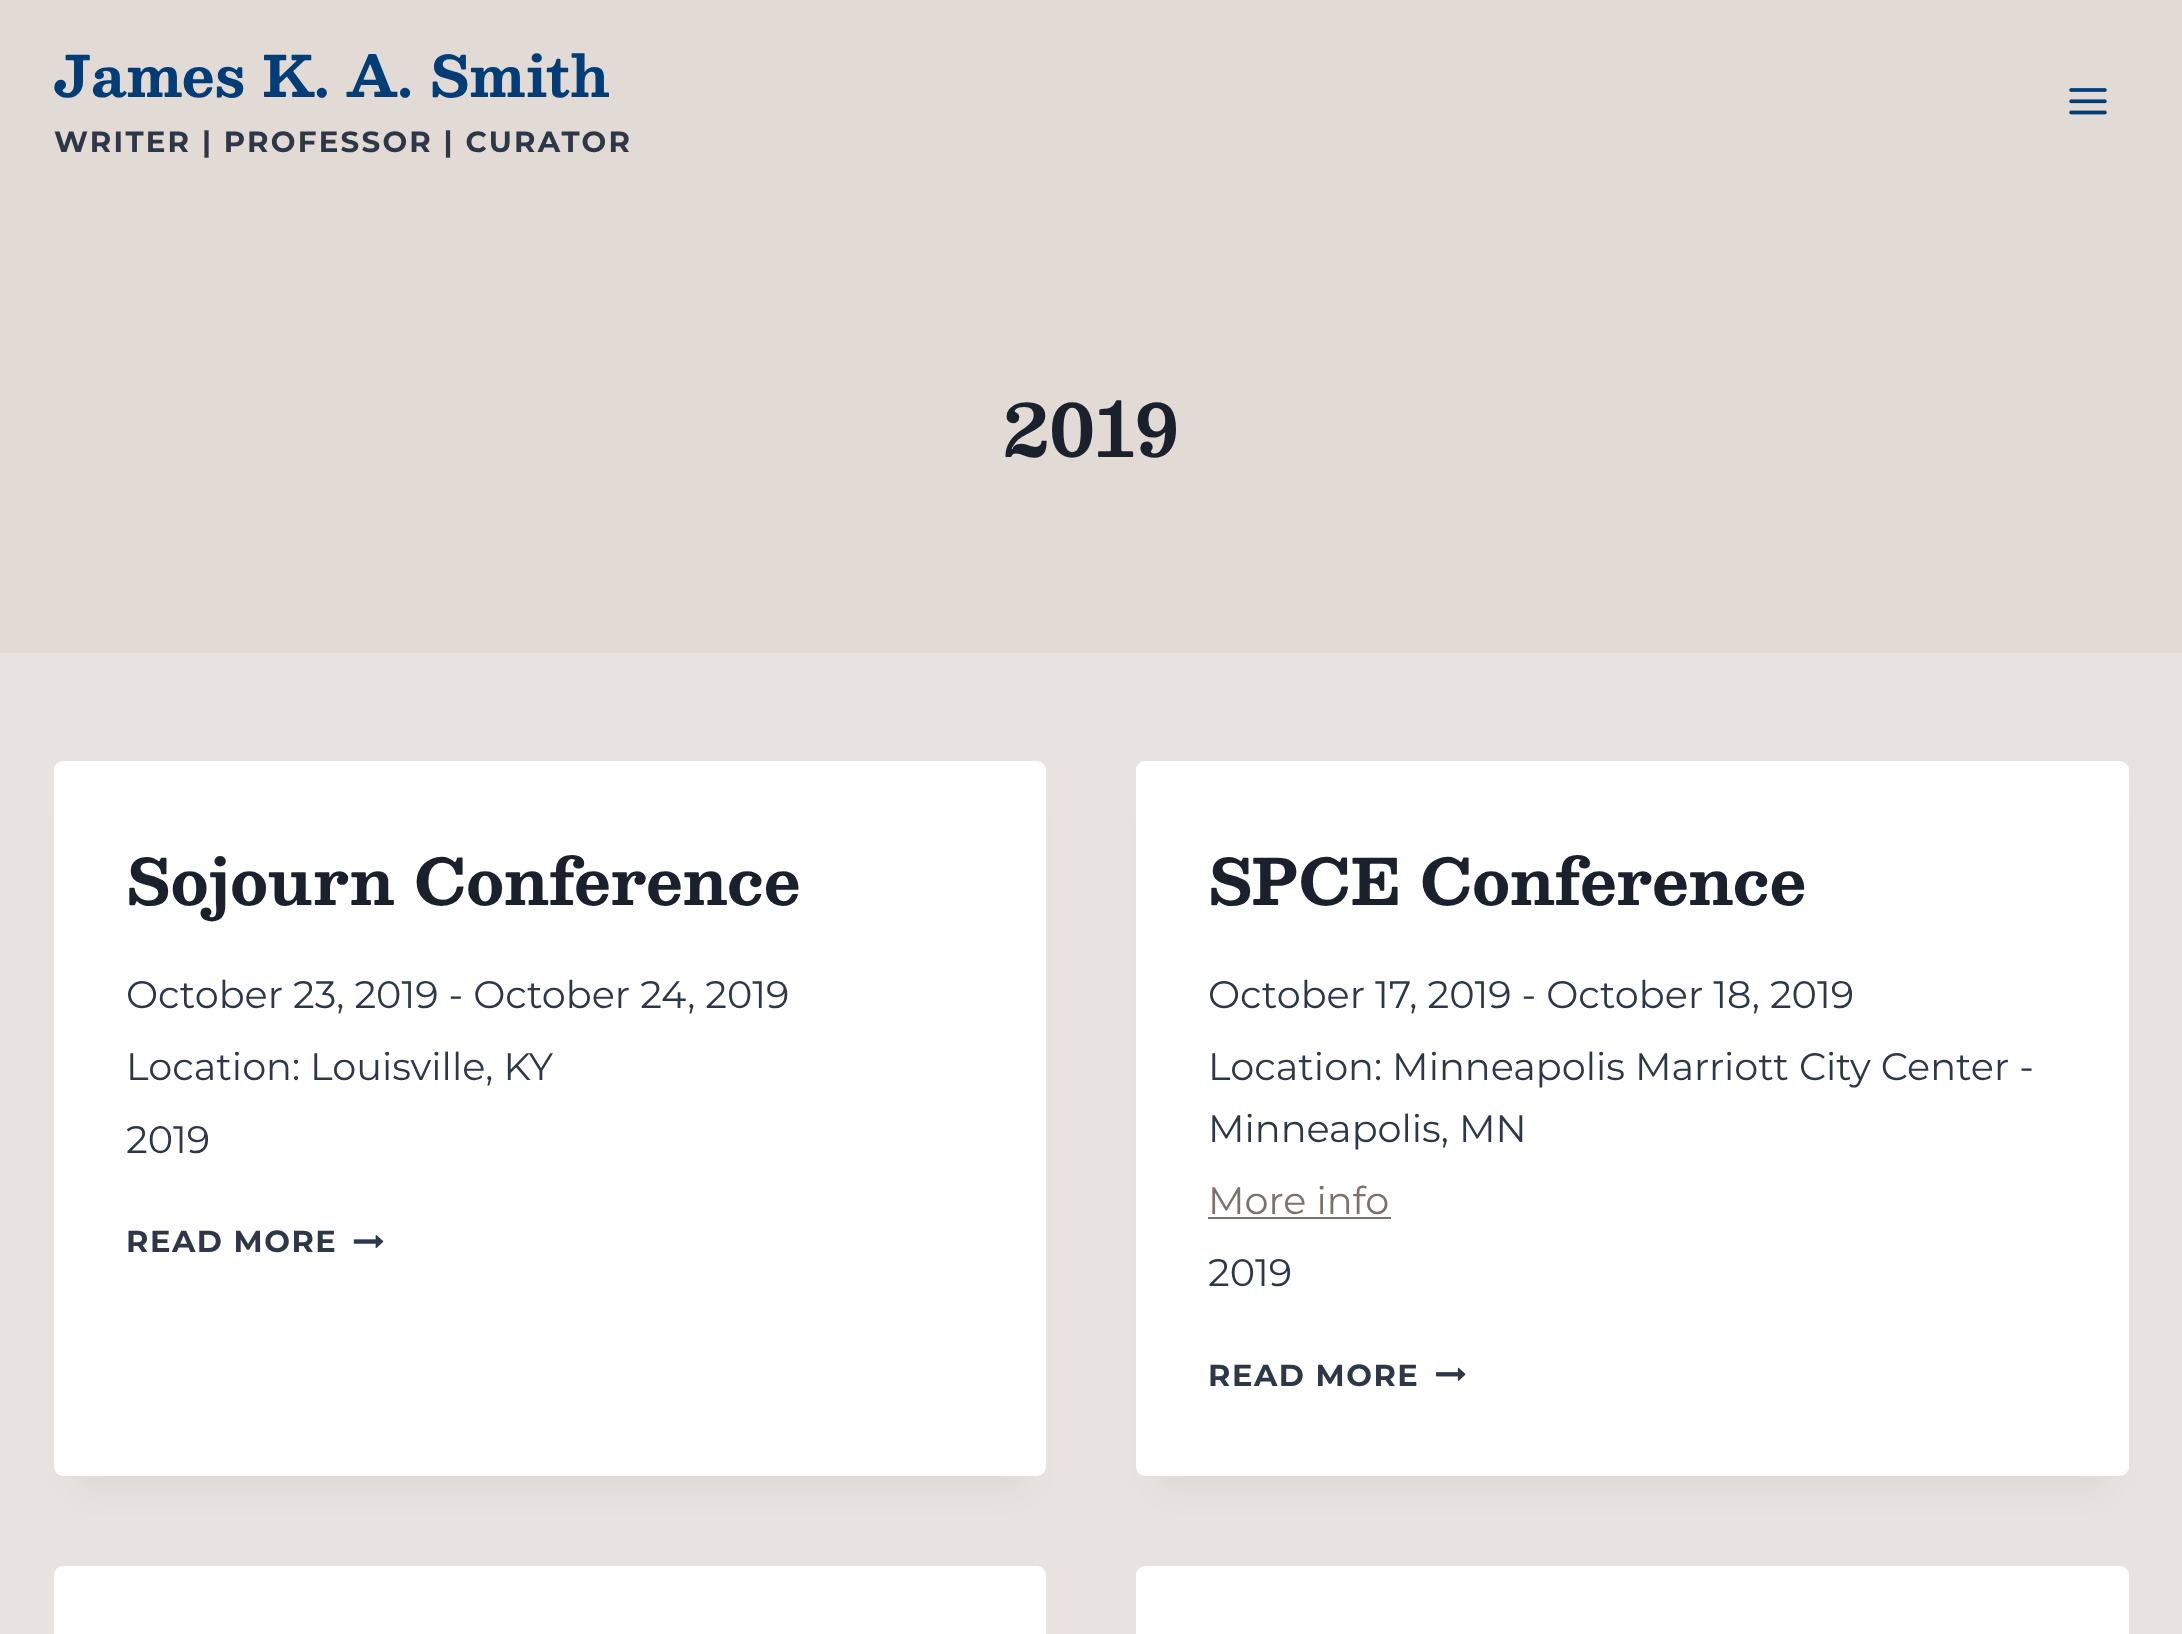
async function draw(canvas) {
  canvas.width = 2182;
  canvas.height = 1634;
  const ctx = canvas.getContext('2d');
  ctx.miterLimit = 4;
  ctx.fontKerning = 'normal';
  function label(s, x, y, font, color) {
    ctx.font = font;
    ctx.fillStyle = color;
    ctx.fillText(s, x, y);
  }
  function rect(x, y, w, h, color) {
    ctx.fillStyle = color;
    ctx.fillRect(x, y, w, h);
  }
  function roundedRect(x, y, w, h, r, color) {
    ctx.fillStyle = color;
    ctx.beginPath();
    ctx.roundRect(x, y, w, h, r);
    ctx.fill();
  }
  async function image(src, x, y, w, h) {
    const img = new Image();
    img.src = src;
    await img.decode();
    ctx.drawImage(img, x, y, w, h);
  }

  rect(0, 0, 2182, 1634, '#e8e3e0');
  rect(0, 0, 2182, 653, '#e1dad5');
  label('James K. A. Smith', 54, 97, 'bold 56.25px Besley', '#023d77');
  ctx.letterSpacing = '2.25px';
  label('WRITER | PROFESSOR | CURATOR', 54, 152, 'bold 29.25px Montserrat', '#2d3748');
  await image('assets/img1.png', 2069, 88, 38, 27);
  ctx.letterSpacing = '0px';
  label('2019', 1003, 457, 'bold 72px Besley', '#1a202c');
  ctx.fillStyle = '#0000000d';
  ctx.filter = 'blur(17px)';
  ctx.beginPath();
  ctx.rect(77, 817, 947, 670);
  ctx.fill();
  ctx.filter = 'none';
  roundedRect(54, 761, 992, 715, 9, '#fff');
  label('Sojourn Conference', 126, 905, 'bold 63px Besley', '#1a202c');
  label('October 23, 2019 - October 24, 2019', 126, 1008, '38.25px Montserrat', '#2d3748');
  label('Location: Louisville, KY', 126, 1080, '38.25px Montserrat', '#2d3748');
  label('2019', 126, 1153, '38.25px Montserrat', '#2d3748');
  ctx.letterSpacing = '1.5px';
  label('READ MORE', 126, 1252, 'bold 30.5px Montserrat', '#2d3748');
  await image('assets/img2.png', 353, 1235, 31, 14);
  ctx.fillStyle = '#0000000d';
  ctx.filter = 'blur(17px)';
  ctx.beginPath();
  ctx.rect(1159, 817, 947, 670);
  ctx.fill();
  ctx.filter = 'none';
  roundedRect(1136, 761, 993, 715, 9, '#fff');
  ctx.letterSpacing = '0px';
  label('SPCE Conference', 1208, 905, 'bold 63px Besley', '#1a202c');
  label('October 17, 2019 - October 18, 2019', 1208, 1008, '38.25px Montserrat', '#2d3748');
  label('Location: Minneapolis Marriott City Center -', 1208, 1080, '38.25px Montserrat', '#2d3748');
  label('Minneapolis, MN', 1208, 1142, '38.25px Montserrat', '#2d3748');
  label('More info', 1208, 1214, '38.25px Montserrat', '#7c716b');
  rect(1208, 1217, 183, 2, '#7c716b');
  label('2019', 1208, 1286, '38.25px Montserrat', '#2d3748');
  ctx.letterSpacing = '1.5px';
  label('READ MORE', 1208, 1386, 'bold 30.5px Montserrat', '#2d3748');
  await image('assets/img3.png', 1436, 1367, 30, 14);
  roundedRect(54, 1566, 992, 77, 9, '#fff');
  roundedRect(1136, 1566, 993, 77, 9, '#fff');
}

draw(document.querySelector('canvas'));
